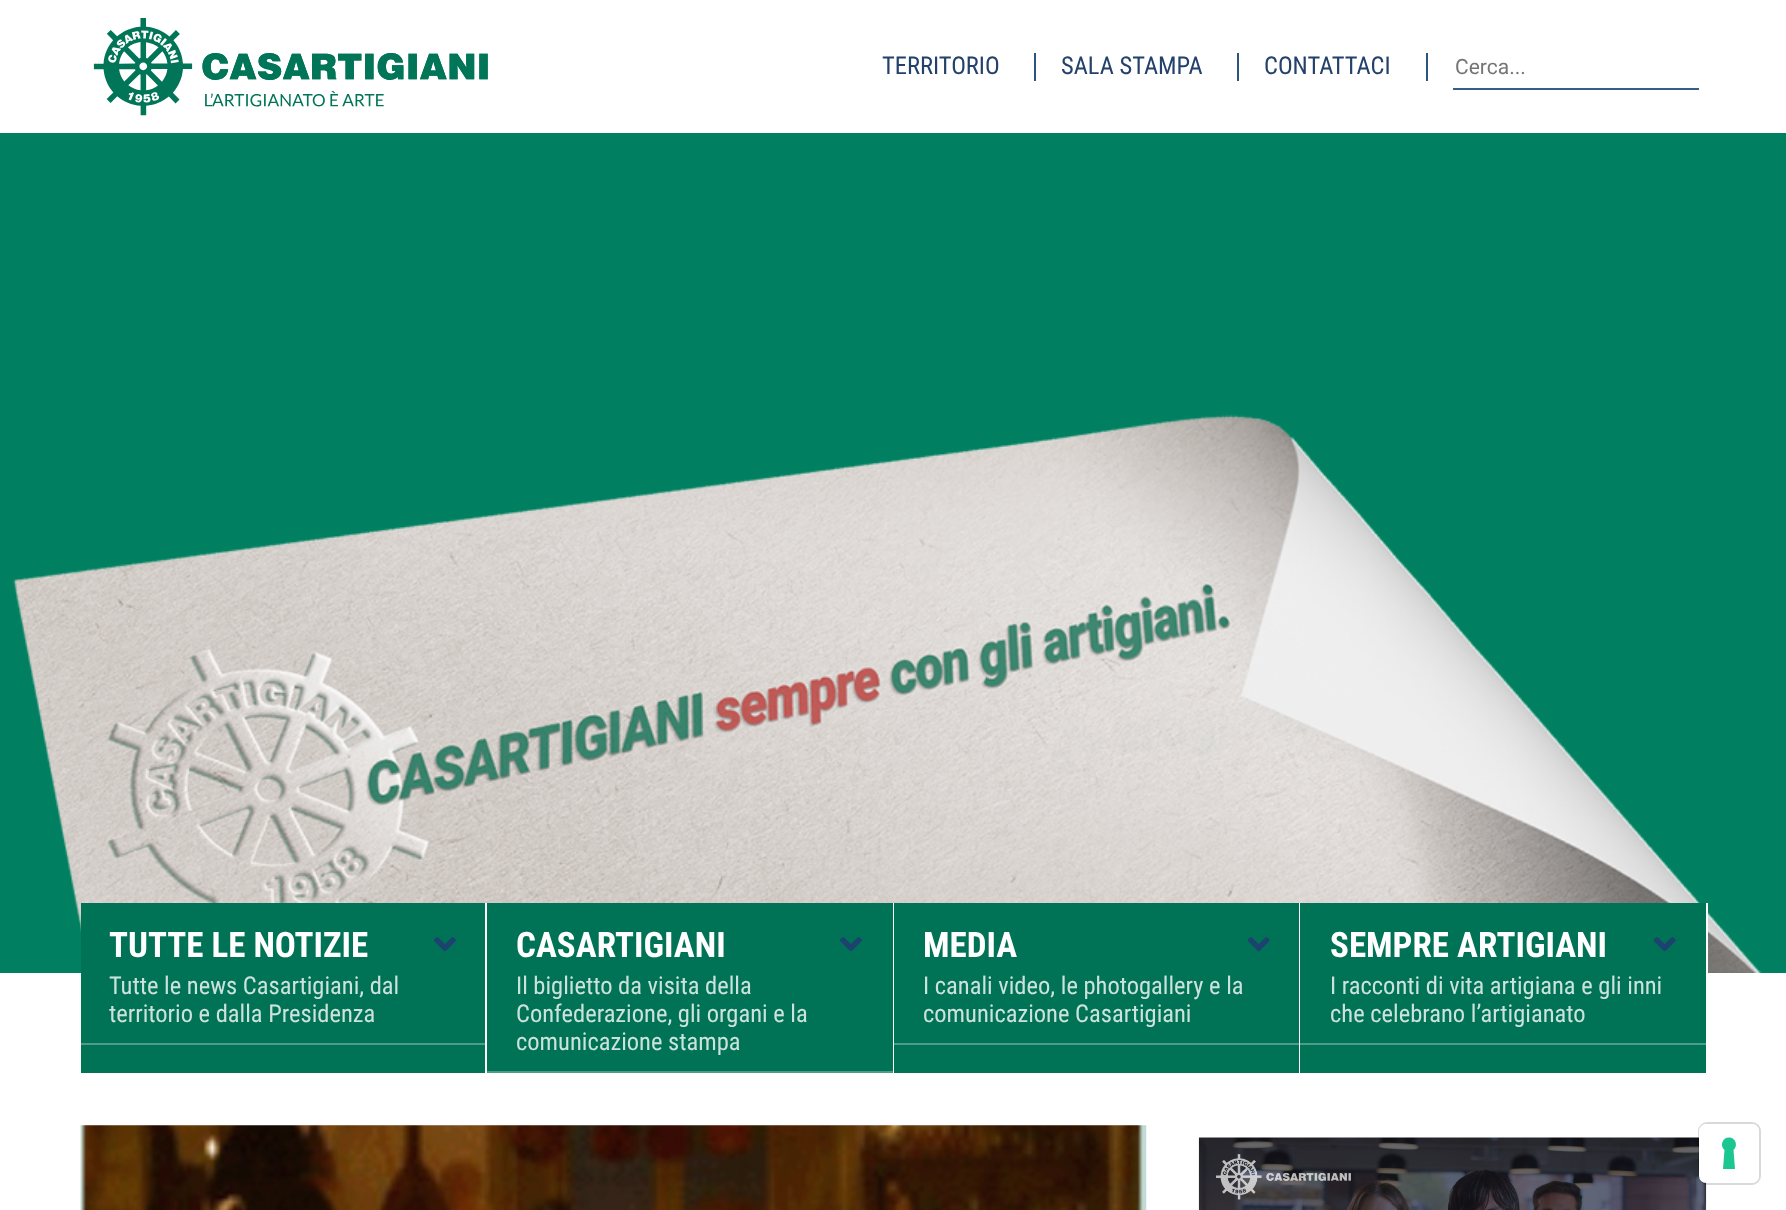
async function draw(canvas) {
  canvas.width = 1786;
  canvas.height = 1210;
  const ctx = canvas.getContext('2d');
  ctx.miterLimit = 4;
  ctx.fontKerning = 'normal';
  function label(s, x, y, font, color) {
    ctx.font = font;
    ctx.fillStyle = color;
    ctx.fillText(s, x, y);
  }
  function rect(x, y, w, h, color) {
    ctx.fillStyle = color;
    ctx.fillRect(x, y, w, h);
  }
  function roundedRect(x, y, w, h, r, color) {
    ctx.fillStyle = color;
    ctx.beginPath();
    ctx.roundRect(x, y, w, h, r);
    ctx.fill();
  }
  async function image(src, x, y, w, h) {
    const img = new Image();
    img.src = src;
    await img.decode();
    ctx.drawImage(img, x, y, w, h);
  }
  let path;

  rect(0, 0, 1786, 1210, '#fff');
  await image('assets/img1.png', 93, 18, 395, 98);
  label('TERRITORIO', 882, 74, '24.5px Roboto Condensed', '#23416b');
  rect(1034, 53, 2, 28, '#2c5481');
  label('SALA STAMPA', 1061, 74, '24.5px Roboto Condensed', '#23416b');
  rect(1237, 53, 2, 28, '#2c5481');
  label('CONTATTACI', 1264, 74, '24.5px Roboto Condensed', '#23416b');
  rect(1426, 53, 2, 28, '#2c5481');
  rect(1453, 88, 246, 2, '#355f8b');
  label('Cerca...', 1455, 74, '21px Roboto', '#757575');
  rect(0, 133, 1786, 840, '#008060');
  await image('assets/img2.png', 13, 414, 1749, 559);
  rect(81, 903, 404, 170, '#007255');
  rect(485, 903, 2, 70, '#fff');
  rect(81, 1043, 404, 2, '#4d9c88');
  label('TUTTE LE NOTIZIE', 109, 957, 'bold 35px Roboto Condensed', '#fff');
  await image('assets/img3.png', 434, 937, 22, 14);
  label('Tutte le news Casartigiani, dal', 109, 994, '24.5px Roboto Condensed', '#cce3dd');
  label('territorio e dalla Presidenza', 109, 1022, '24.5px Roboto Condensed', '#cce3dd');
  rect(487, 903, 406, 168, '#007255');
  rect(893, 903, 1, 70, '#fff');
  rect(487, 1071, 406, 2, '#4d9c88');
  label('CASARTIGIANI', 516, 957, 'bold 35px Roboto Condensed', '#fff');
  await image('assets/img3.png', 840, 937, 22, 14);
  label('Il biglietto da visita della', 516, 994, '24.5px Roboto Condensed', '#cce3dd');
  label('Confederazione, gli organi e la', 516, 1022, '24.5px Roboto Condensed', '#cce3dd');
  label('comunicazione stampa', 516, 1050, '24.5px Roboto Condensed', '#cce3dd');
  rect(894, 903, 405, 170, '#007255');
  rect(1299, 903, 1, 70, '#fff');
  rect(894, 1043, 405, 2, '#4d9c88');
  label('MEDIA', 923, 957, 'bold 35px Roboto Condensed', '#fff');
  await image('assets/img4.png', 1247, 937, 23, 15);
  label('I canali video, le photogallery e la', 923, 994, '24.5px Roboto Condensed', '#cce3dd');
  label('comunicazione Casartigiani', 923, 1022, '24.5px Roboto Condensed', '#cce3dd');
  rect(1300, 903, 406, 170, '#007255');
  rect(1706, 903, 2, 70, '#fff');
  rect(1300, 1043, 406, 2, '#4d9c88');
  label('SEMPRE ARTIGIANI', 1330, 957, 'bold 35px Roboto Condensed', '#fff');
  await image('assets/img4.png', 1653, 937, 23, 15);
  label('I racconti di vita artigiana e gli inni', 1330, 994, '24.5px Roboto Condensed', '#cce3dd');
  label('che celebrano l’artigianato', 1330, 1022, '24.5px Roboto Condensed', '#cce3dd');
  await image('assets/img5.png', 80, 1125, 1067, 85);
  await image('assets/img6.png', 1198, 1137, 509, 73);
  ctx.beginPath();
  ctx.roundRect(1699, 1123, 61, 61, 8);
  ctx.strokeStyle = '#00000026';
  ctx.lineWidth = 2;
  ctx.stroke();
  roundedRect(1699, 1124, 60, 59, 7, '#fff');
  ctx.fillStyle = '#1cc691';
  path = new Path2D('M1729 1137.5C1735.5 1137.5 1738.5 1145.5 1733.5 1150L1735 1169H1723L1724.5 1150C1719.5 1145.5 1722.5 1137.5 1729 1137.5Z');
  ctx.fill(path, 'evenodd');
}

draw(document.querySelector('canvas'));
